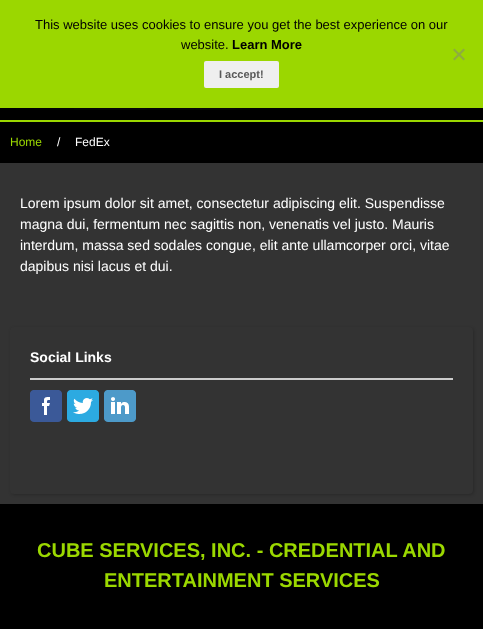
async function draw(canvas) {
  canvas.width = 483;
  canvas.height = 629;
  const ctx = canvas.getContext('2d');
  ctx.miterLimit = 4;
  ctx.fontKerning = 'normal';
  function label(s, x, y, font, color) {
    ctx.font = font;
    ctx.fillStyle = color;
    ctx.fillText(s, x, y);
  }
  function rect(x, y, w, h, color) {
    ctx.fillStyle = color;
    ctx.fillRect(x, y, w, h);
  }
  function roundedRect(x, y, w, h, r, color) {
    ctx.fillStyle = color;
    ctx.beginPath();
    ctx.roundRect(x, y, w, h, r);
    ctx.fill();
  }
  async function image(src, x, y, w, h) {
    const img = new Image();
    img.src = src;
    await img.decode();
    ctx.drawImage(img, x, y, w, h);
  }
  let path;

  rect(0, 0, 483, 629, '#000');
  rect(0, 0, 483, 108, '#9bd700');
  label('This website uses cookies to ensure you get the best experience on our', 35, 29, '13px Liberation Sans', '#000');
  label('website.', 181, 49, '13px Liberation Sans', '#000');
  label('Learn More', 232, 49, 'bold 13px Liberation Sans', '#000');
  ctx.fillStyle = '#8eac40';
  path = new Path2D('M463.5 48.5L465 50L454.5 60.5L453 59Z');
  ctx.fill(path);
  path = new Path2D('M453 50L454.5 48.5L465 59L463.5 60.5Z');
  ctx.fill(path);
  roundedRect(204, 61, 75, 27, 2, '#efefef');
  label('I accept!', 219, 78, 'bold 11px Liberation Sans', '#595959');
  rect(0, 120, 483, 2, '#9bd700');
  await image('assets/img1.png', 16, 108, 285, 2);
  rect(0, 163, 483, 341, '#333');
  label('Home', 10, 146, '12px Liberation Sans', '#9bd800');
  label('/', 57, 146, '12px Liberation Sans', '#fff');
  label('FedEx', 75, 146, '12px Liberation Sans', '#fff');
  label('Lorem ipsum dolor sit amet, consectetur adipiscing elit. Suspendisse', 20, 208, '14px Liberation Sans', '#fff');
  label('magna dui, fermentum nec sagittis non, venenatis vel justo. Mauris', 20, 229, '14px Liberation Sans', '#fff');
  label('interdum, massa sed sodales congue, elit ante ullamcorper orci, vitae', 20, 250, '14px Liberation Sans', '#fff');
  label('dapibus nisi lacus et dui.', 20, 271, '14px Liberation Sans', '#fff');
  ctx.fillStyle = '#00000033';
  ctx.filter = 'blur(1.5px)';
  ctx.beginPath();
  ctx.roundRect(11, 328, 463, 167, 4);
  ctx.fill();
  ctx.filter = 'none';
  roundedRect(10, 327, 463, 167, 4, '#333');
  rect(30, 378, 423, 2, '#ccc');
  label('Social Links', 30, 362, 'bold 14px Liberation Sans', '#fff');
  await image('assets/img2.png', 30, 390, 32, 32);
  await image('assets/img3.png', 67, 390, 32, 32);
  await image('assets/img4.png', 104, 390, 32, 32);
  label('CUBE SERVICES, INC. - CREDENTIAL AND', 37, 557, 'bold 20px Liberation Sans', '#9bd800');
  label('ENTERTAINMENT SERVICES', 104, 587, 'bold 20px Liberation Sans', '#9bd800');
}

draw(document.querySelector('canvas'));
